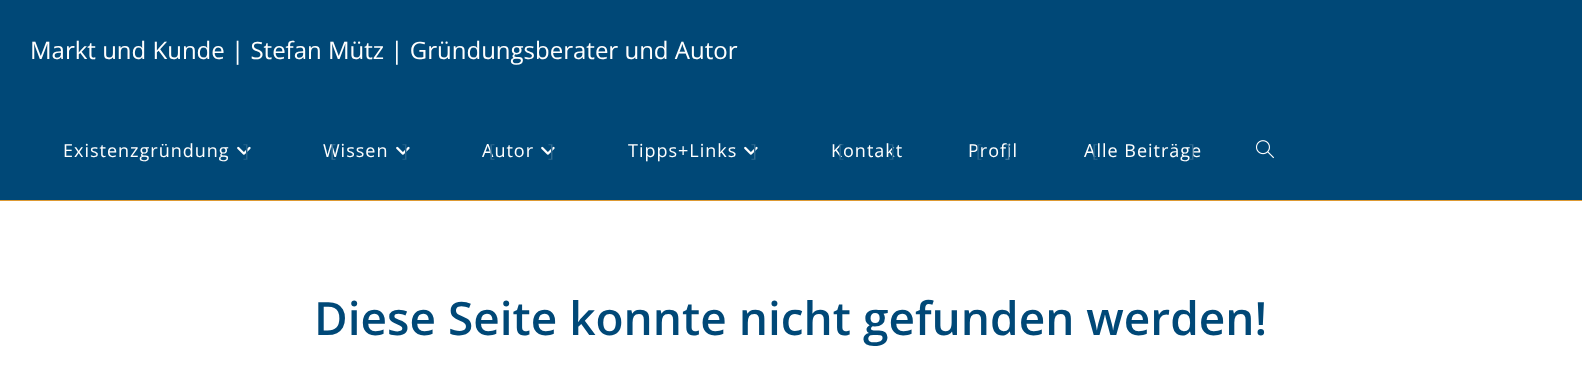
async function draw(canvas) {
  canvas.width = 1582;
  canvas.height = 392;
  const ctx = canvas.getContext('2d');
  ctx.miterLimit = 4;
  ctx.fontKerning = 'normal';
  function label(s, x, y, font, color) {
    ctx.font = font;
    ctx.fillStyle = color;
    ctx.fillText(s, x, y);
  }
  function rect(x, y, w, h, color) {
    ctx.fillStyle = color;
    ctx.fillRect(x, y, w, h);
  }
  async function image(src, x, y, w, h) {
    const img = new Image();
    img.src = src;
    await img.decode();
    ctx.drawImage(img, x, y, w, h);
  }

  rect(0, 0, 1582, 392, '#fff');
  rect(0, 0, 1582, 200, '#004877');
  rect(0, 200, 1582, 1, '#d93');
  label('Markt und Kunde | Stefan Mütz | Gründungsberater und Autor', 30, 59, '24px Open Sans', '#fff');
  ctx.letterSpacing = '1px';
  label('Existenzgründung', 63, 157, '18px Open Sans', '#fff');
  await image('assets/img1.png', 237, 146, 14, 9);
  label(']', 243, 157, '18px Open Sans', '#25638b');
  label('Wissen', 323, 157, '18px Open Sans', '#fff');
  label('[', 330, 157, '18px Open Sans', '#397195');
  await image('assets/img1.png', 396, 146, 14, 9);
  label(']', 402, 157, '18px Open Sans', '#25638b');
  label('Autor', 482, 157, '18px Open Sans', '#fff');
  label('[', 489, 157, '18px Open Sans', '#306a90');
  await image('assets/img1.png', 541, 146, 14, 9);
  label(']', 548, 157, '18px Open Sans', '#306a90');
  label('Tipps+Links', 628, 157, '18px Open Sans', '#fff');
  await image('assets/img1.png', 744, 146, 14, 9);
  label(']', 751, 157, '18px Open Sans', '#306a90');
  label('Kontakt', 831, 157, '18px Open Sans', '#fff');
  label('[', 838, 157, '18px Open Sans', '#25638b');
  label(']', 889, 157, '18px Open Sans', '#25638b');
  label('Profil', 968, 157, '18px Open Sans', '#fff');
  label('[', 976, 157, '18px Open Sans', '#25638b');
  label(']', 1005, 157, '18px Open Sans', '#5081a2');
  label('Alle Beiträge', 1084, 157, '18px Open Sans', '#fff');
  label('[', 1092, 157, '18px Open Sans', '#306a90');
  label(']', 1189, 157, '18px Open Sans', '#306a90');
  await image('assets/img2.png', 1256, 140, 18, 19);
  ctx.letterSpacing = '0px';
  label('Diese Seite konnte nicht gefunden werden!', 314, 335, '600 46px Open Sans', '#004877');
}

draw(document.querySelector('canvas'));
